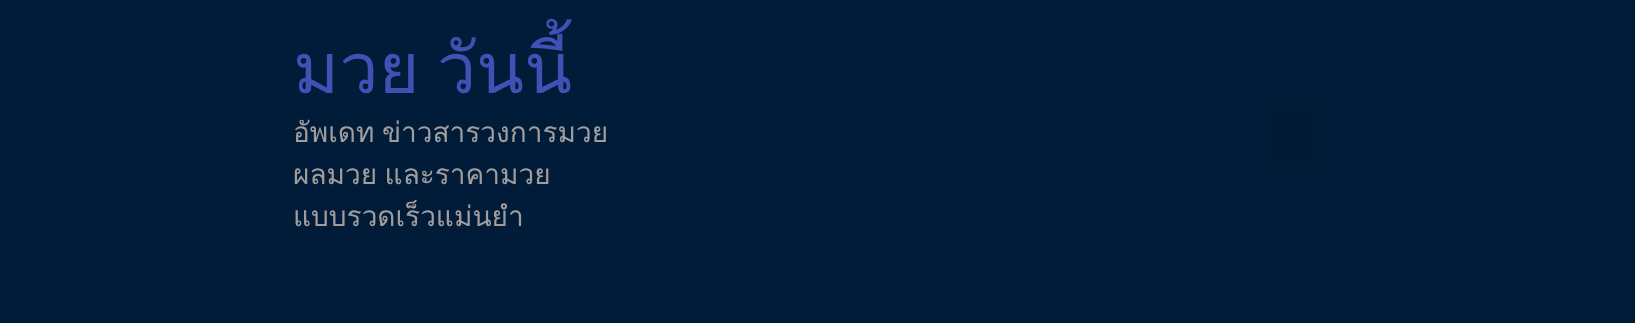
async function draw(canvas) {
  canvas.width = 1635;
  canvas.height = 323;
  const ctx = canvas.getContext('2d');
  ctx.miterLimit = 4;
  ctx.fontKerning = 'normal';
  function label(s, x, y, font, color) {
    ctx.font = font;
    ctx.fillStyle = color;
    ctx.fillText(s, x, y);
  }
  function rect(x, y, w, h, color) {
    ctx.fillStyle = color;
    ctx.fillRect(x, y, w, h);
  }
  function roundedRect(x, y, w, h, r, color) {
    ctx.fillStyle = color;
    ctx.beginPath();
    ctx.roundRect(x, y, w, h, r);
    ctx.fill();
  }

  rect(0, 0, 1635, 323, '#001c38');
  ctx.wordSpacing = '-6px';
  label('มวย วันนี้', 293, 93, '70px Loma', '#3f51b5');
  ctx.wordSpacing = '-2px';
  label('อัพเดท ข่าวสารวงการมวย', 293, 142, '28px Loma', '#a29d9d');
  label('ผลมวย และราคามวย', 293, 184, '28px Loma', '#a29d9d');
  ctx.wordSpacing = '0px';
  label('แบบรวดเร็วแม่นยำ', 293, 226, '28px Loma', '#a29d9d');
  roundedRect(1267, 105, 51, 58, 5, '#001b35');
}

draw(document.querySelector('canvas'));
